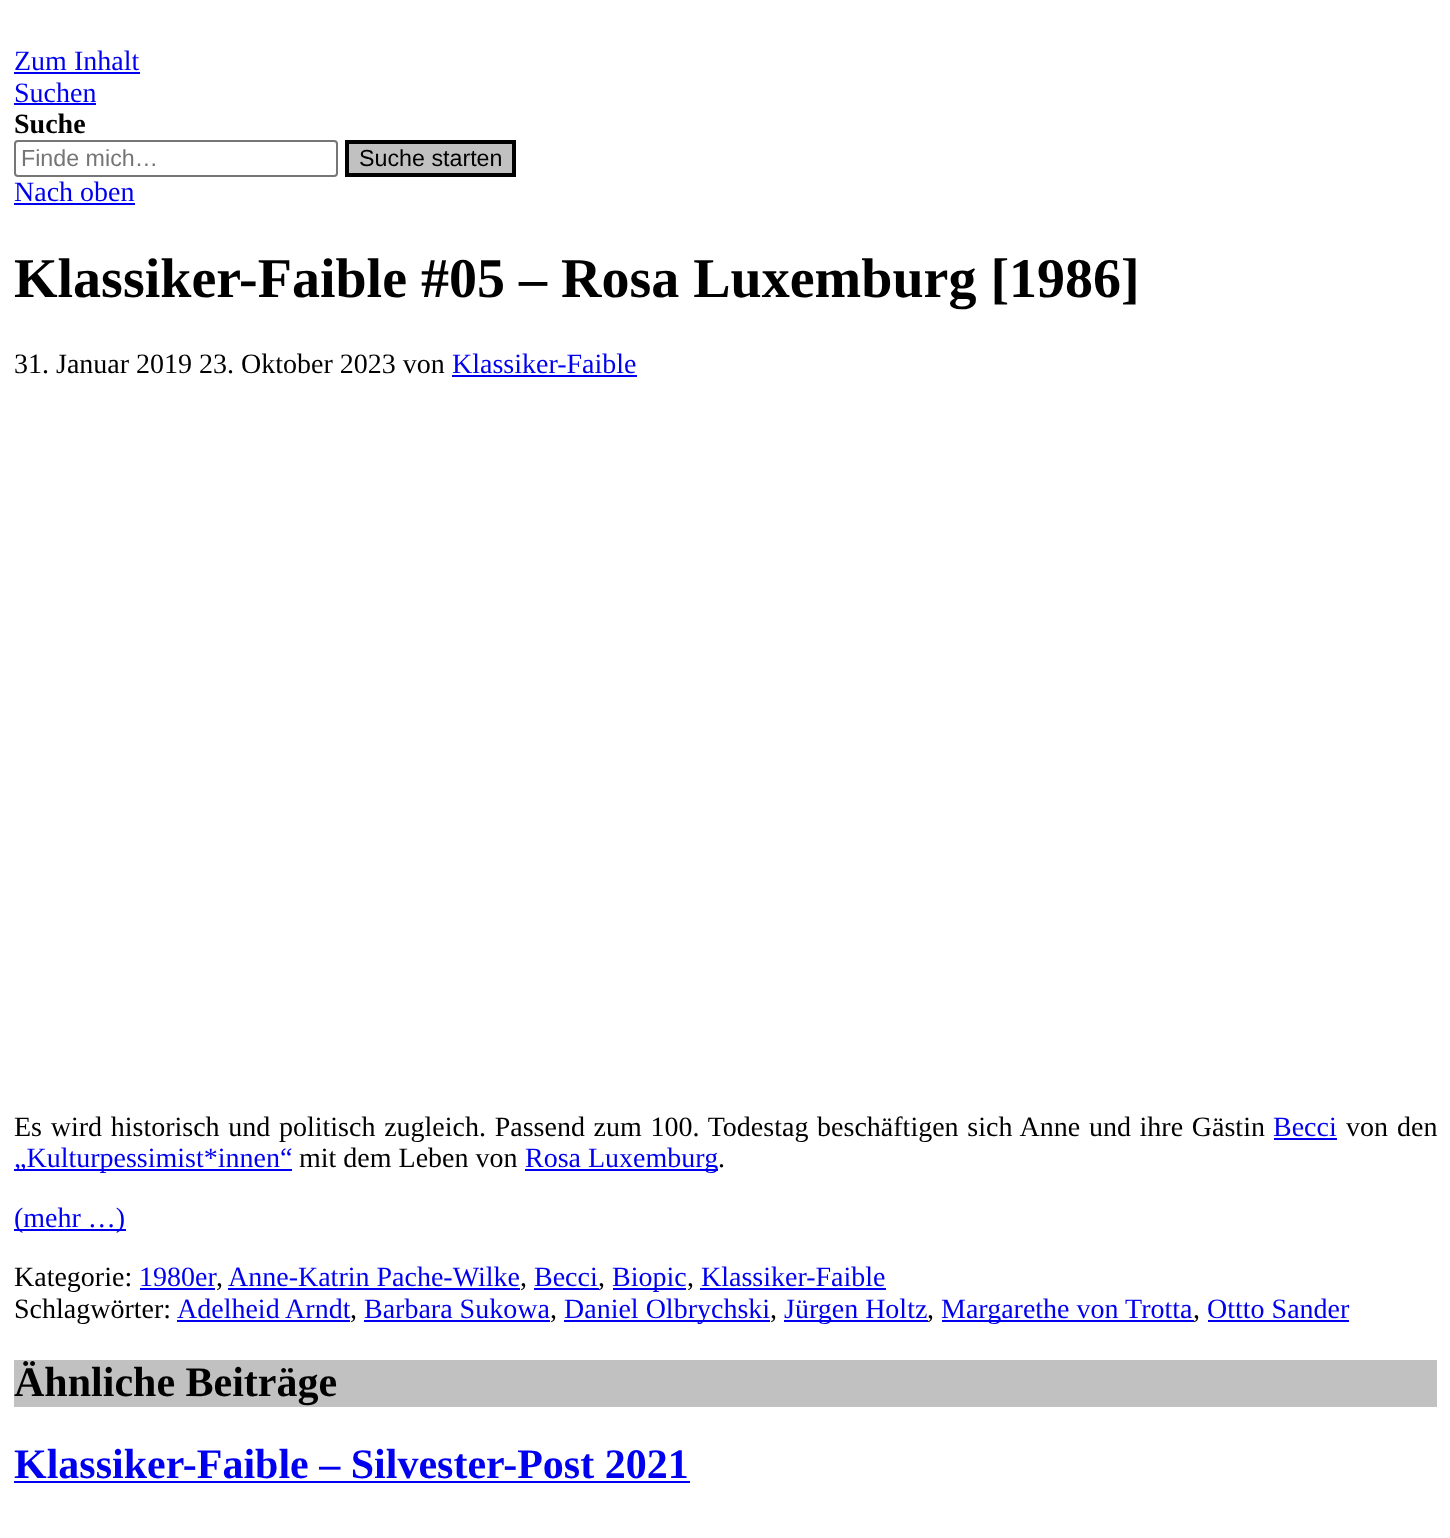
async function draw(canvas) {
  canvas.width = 1450;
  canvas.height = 1538;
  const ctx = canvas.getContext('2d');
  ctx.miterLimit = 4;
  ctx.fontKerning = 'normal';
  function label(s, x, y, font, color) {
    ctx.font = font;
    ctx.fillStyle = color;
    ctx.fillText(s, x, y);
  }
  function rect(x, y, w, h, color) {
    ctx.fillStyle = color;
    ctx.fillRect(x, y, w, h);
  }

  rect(0, 0, 1450, 1538, '#fff');
  label('Zum Inhalt', 14, 70, '28px Liberation Serif', '#00e');
  rect(14, 72, 126, 2, '#00e');
  label('Suchen', 14, 102, '28px Liberation Serif', '#00e');
  rect(14, 103, 82, 2, '#00e');
  label('Suche', 14, 133, 'bold 28px Liberation Serif', '#000');
  ctx.beginPath();
  ctx.roundRect(15, 141, 322, 35, 3);
  ctx.strokeStyle = '#767676';
  ctx.lineWidth = 2;
  ctx.stroke();
  label('Finde mich…', 21, 166, '23.25px Liberation Sans', '#757575');
  ctx.fillStyle = '#c1c1c1';
  ctx.beginPath();
  ctx.rect(347, 142, 167, 33);
  ctx.fill();
  ctx.strokeStyle = '#000';
  ctx.lineWidth = 4;
  ctx.stroke();
  label('Suche starten', 359, 166, '23.25px Liberation Sans', '#000');
  label('Nach oben', 14, 201, '28px Liberation Serif', '#00e');
  rect(14, 203, 121, 2, '#00e');
  label('Klassiker-Faible #05 – Rosa Luxemburg [1986]', 14, 297, 'bold 56px Liberation Serif', '#000');
  label('31. Januar 2019 23. Oktober 2023 von', 14, 373, '28px Liberation Serif', '#000');
  label('Klassiker-Faible', 452, 373, '28px Liberation Serif', '#00e');
  rect(452, 375, 185, 2, '#00e');
  ctx.wordSpacing = '1.7px';
  label('Es wird historisch und politisch zugleich. Passend zum 100. Todestag beschäftigen sich Anne und ihre Gästin', 14, 1136, '28px Liberation Serif', '#000');
  ctx.wordSpacing = '0px';
  label('Becci', 1273, 1136, '28px Liberation Serif', '#00e');
  rect(1274, 1138, 63, 2, '#00e');
  ctx.wordSpacing = '2px';
  label('von den', 1346, 1136, '28px Liberation Serif', '#000');
  rect(14, 1169, 278, 2, '#00e');
  ctx.wordSpacing = '0px';
  label('„Kulturpessimist*innen“', 14, 1167, '28px Liberation Serif', '#00e');
  label('mit dem Leben von', 299, 1167, '28px Liberation Serif', '#000');
  rect(525, 1169, 193, 2, '#00e');
  label('Rosa Luxemburg', 525, 1167, '28px Liberation Serif', '#00e');
  label('.', 718, 1167, '28px Liberation Serif', '#000');
  rect(14, 1229, 112, 2, '#00e');
  label('(mehr …)', 14, 1227, '28px Liberation Serif', '#00e');
  label('Kategorie:', 14, 1286, '28px Liberation Serif', '#000');
  label('1980er', 139, 1286, '28px Liberation Serif', '#00e');
  rect(140, 1288, 75, 2, '#00e');
  label(',', 216, 1286, '28px Liberation Serif', '#000');
  label('Anne-Katrin Pache-Wilke', 228, 1286, '28px Liberation Serif', '#00e');
  rect(228, 1288, 292, 2, '#00e');
  label(',', 520, 1286, '28px Liberation Serif', '#000');
  label('Becci', 534, 1286, '28px Liberation Serif', '#00e');
  rect(534, 1288, 65, 2, '#00e');
  label(',', 598, 1286, '28px Liberation Serif', '#000');
  rect(613, 1288, 73, 2, '#00e');
  label('Biopic', 612, 1286, '28px Liberation Serif', '#00e');
  label(',', 687, 1286, '28px Liberation Serif', '#000');
  label('Klassiker-Faible', 701, 1286, '28px Liberation Serif', '#00e');
  rect(700, 1288, 186, 2, '#00e');
  label('Schlagwörter:', 14, 1318, '28px Liberation Serif', '#000');
  label('Adelheid Arndt', 177, 1318, '28px Liberation Serif', '#00e');
  rect(177, 1320, 173, 2, '#00e');
  label(',', 350, 1318, '28px Liberation Serif', '#000');
  label('Barbara Sukowa', 364, 1318, '28px Liberation Serif', '#00e');
  rect(364, 1320, 186, 2, '#00e');
  label(',', 550, 1318, '28px Liberation Serif', '#000');
  rect(564, 1320, 206, 2, '#00e');
  label('Daniel Olbrychski', 564, 1318, '28px Liberation Serif', '#00e');
  label(',', 770, 1318, '28px Liberation Serif', '#000');
  rect(784, 1320, 144, 2, '#00e');
  label('Jürgen Holtz', 784, 1318, '28px Liberation Serif', '#00e');
  label(',', 927, 1318, '28px Liberation Serif', '#000');
  rect(942, 1320, 252, 2, '#00e');
  label('Margarethe von Trotta', 941, 1318, '28px Liberation Serif', '#00e');
  label(',', 1193, 1318, '28px Liberation Serif', '#000');
  label('Ottto Sander', 1207, 1318, '28px Liberation Serif', '#00e');
  rect(1208, 1320, 141, 2, '#00e');
  rect(14, 1360, 1423, 47, '#c1c1c1');
  label('Ähnliche Beiträge', 14, 1396, 'bold 42px Liberation Serif', '#000');
  label('Klassiker-Faible – Silvester-Post 2021', 14, 1478, 'bold 42px Liberation Serif', '#00e');
  rect(14, 1481, 676, 2, '#00e');
}

draw(document.querySelector('canvas'));
